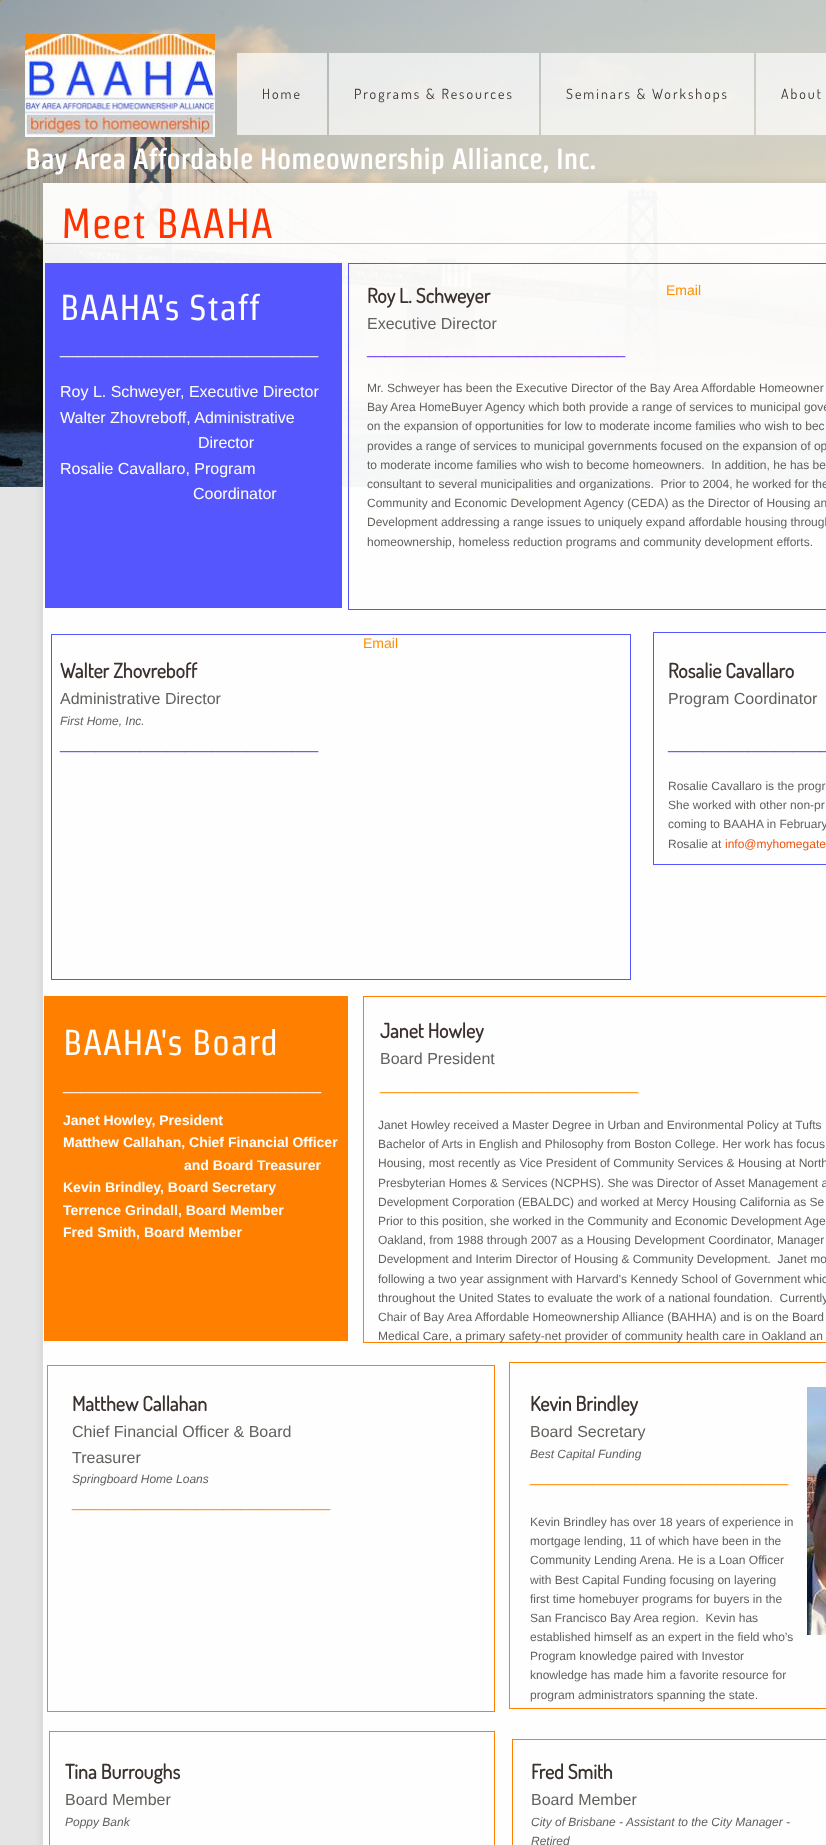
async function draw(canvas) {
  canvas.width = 826;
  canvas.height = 1845;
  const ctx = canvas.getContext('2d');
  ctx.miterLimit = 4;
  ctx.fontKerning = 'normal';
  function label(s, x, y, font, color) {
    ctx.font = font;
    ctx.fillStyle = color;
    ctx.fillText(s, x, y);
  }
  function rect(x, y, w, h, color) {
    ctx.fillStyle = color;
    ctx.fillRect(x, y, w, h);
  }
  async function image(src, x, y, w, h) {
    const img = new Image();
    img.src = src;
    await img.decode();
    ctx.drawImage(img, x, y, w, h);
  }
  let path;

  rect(0, 0, 826, 1845, '#e5e5e5');
  await image('assets/img1.png', 0, 0, 826, 487);
  ctx.fillStyle = '#98c22a';
  ctx.beginPath();
  ctx.arc(519, 501, 5, 0, 2 * Math.PI);
  ctx.fill();
  rect(0, 0, 1, 1, '#a38154');
  await image('assets/img2.png', 25, 34, 190, 103);
  rect(237, 53, 90, 82, '#ffffffb3');
  ctx.letterSpacing = '2px';
  label('Home', 262, 99, '14px Dosis', '#3b322f');
  rect(329, 53, 210, 82, '#ffffffb3');
  label('Programs & Resources', 354, 99, '14px Dosis', '#3b322f');
  rect(541, 53, 213, 82, '#ffffffb3');
  label('Seminars & Workshops', 566, 99, '14px Dosis', '#3b322f');
  rect(756, 53, 70, 82, '#ffffffb3');
  label('About', 781, 99, '14px Dosis', '#3b322f');
  ctx.letterSpacing = '0px';
  label('Bay Area Affordable Homeownership Alliance, Inc.', 25, 169, 'bold 28px Strait', '#fff');
  ctx.save();
  path = new Path2D('M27 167H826V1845H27ZM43 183H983V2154H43Z');
  ctx.clip(path, 'evenodd');
  ctx.fillStyle = '#0000001a';
  ctx.filter = 'blur(5px)';
  ctx.beginPath();
  ctx.rect(43, 183, 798, 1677);
  ctx.fill();
  ctx.filter = 'none';
  ctx.restore();
  rect(43, 183, 783, 1662, '#fffffff2');
  label('Meet BAAHA', 61, 238, '42px Strait', '#f30');
  rect(45, 243, 781, 1, '#c6c5c5');
  rect(45, 263, 297, 345, '#5656ff');
  ctx.strokeStyle = '#5656ff';
  ctx.strokeRect(348.5, 263.5, 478, 346);
  label('BAAHA\'s Staff', 60, 320, '36px Strait', '#fff');
  label('_____________________________', 60, 354, '16px Liberation Sans', '#fff');
  label('Roy L. Schweyer', 367, 303, 'bold 20px Dosis', '#3b322f');
  label('Executive Director', 367, 329, '16px Liberation Sans', '#63615e');
  label('_____________________________', 367, 354, '16px Liberation Sans', '#63f');
  label('Email', 666, 295, '14px Liberation Sans', '#ff8c00');
  label('Roy L. Schweyer, Executive Director', 60, 397, '16px Liberation Sans', '#fff');
  label('Walter Zhovreboff, Administrative', 60, 423, '16px Liberation Sans', '#fff');
  label('Director', 198, 448, '16px Liberation Sans', '#fff');
  label('Rosalie Cavallaro, Program', 60, 474, '16px Liberation Sans', '#fff');
  label('Coordinator', 193, 499, '16px Liberation Sans', '#fff');
  label('Mr. Schweyer has been the Executive Director of the Bay Area Affordable Homeowner', 367, 392, '12px Liberation Sans', '#63615e');
  label('Bay Area HomeBuyer Agency which both provide a range of services to municipal gove', 367, 411, '12px Liberation Sans', '#63615e');
  label('on the expansion of opportunities for low to moderate income families who wish to bec', 367, 430, '12px Liberation Sans', '#63615e');
  label('provides a range of services to municipal governments focused on the expansion of op', 367, 450, '12px Liberation Sans', '#63615e');
  label('to moderate income families who wish to become homeowners.  In addition, he has be', 367, 469, '12px Liberation Sans', '#63615e');
  label('consultant to several municipalities and organizations.  Prior to 2004, he worked for the', 367, 488, '12px Liberation Sans', '#63615e');
  label('Community and Economic Development Agency (CEDA) as the Director of Housing an', 367, 507, '12px Liberation Sans', '#63615e');
  label('Development addressing a range issues to uniquely expand affordable housing through', 367, 526, '12px Liberation Sans', '#63615e');
  label('homeownership, homeless reduction programs and community development efforts.', 367, 546, '12px Liberation Sans', '#63615e');
  ctx.strokeRect(51.5, 634.5, 579, 345);
  ctx.strokeRect(653.5, 632.5, 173, 232);
  label('Email', 363, 648, '14px Liberation Sans', '#ff8c00');
  label('Walter Zhovreboff', 60, 678, 'bold 20px Dosis', '#3b322f');
  label('Administrative Director', 60, 704, '16px Liberation Sans', '#63615e');
  label('First Home, Inc.', 60, 725, 'italic 12px Liberation Sans', '#63615e');
  label('_____________________________', 60, 749, '16px Liberation Sans', '#63f');
  label('Rosalie Cavallaro', 668, 678, 'bold 20px Dosis', '#3b322f');
  label('Program Coordinator', 668, 704, '16px Liberation Sans', '#63615e');
  label('__________________', 668, 749, '16px Liberation Sans', '#63f');
  label('Rosalie Cavallaro is the progr', 668, 790, '12px Liberation Sans', '#63615e');
  label('She worked with other non-pr', 668, 809, '12px Liberation Sans', '#63615e');
  label('coming to BAAHA in February', 668, 828, '12px Liberation Sans', '#63615e');
  label('Rosalie at', 668, 848, '12px Liberation Sans', '#63615e');
  label('info@myhomegate', 725, 848, '12px Liberation Sans', '#e51');
  rect(44, 996, 304, 345, '#ff7f00');
  ctx.strokeStyle = '#ff7f00';
  ctx.strokeRect(363.5, 996.5, 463, 346);
  label('BAAHA\'s Board', 63, 1055, '36px Strait', '#fff');
  label('_____________________________', 63, 1090, '16px Liberation Sans', '#fff');
  label('Janet Howley', 380, 1038, 'bold 20px Dosis', '#3b322f');
  label('Board President', 380, 1064, '16px Liberation Sans', '#63615e');
  label('_____________________________', 380, 1090, '16px Liberation Sans', '#ff8c00');
  label('Janet Howley, President', 63, 1125, 'bold 14px Liberation Sans', '#fff');
  label('Matthew Callahan, Chief Financial Officer', 63, 1147, 'bold 14px Liberation Sans', '#fff');
  label('and Board Treasurer', 184, 1170, 'bold 14px Liberation Sans', '#fff');
  label('Kevin Brindley, Board Secretary', 63, 1192, 'bold 14px Liberation Sans', '#fff');
  label('Terrence Grindall, Board Member', 63, 1215, 'bold 14px Liberation Sans', '#fff');
  label('Fred Smith, Board Member', 63, 1237, 'bold 14px Liberation Sans', '#fff');
  label('Janet Howley received a Master Degree in Urban and Environmental Policy at Tufts', 378, 1129, '12px Liberation Sans', '#63615e');
  label('Bachelor of Arts in English and Philosophy from Boston College. Her work has focus', 378, 1148, '12px Liberation Sans', '#63615e');
  label('Housing, most recently as Vice President of Community Services & Housing at North', 378, 1167, '12px Liberation Sans', '#63615e');
  label('Presbyterian Homes & Services (NCPHS). She was Director of Asset Management a', 378, 1187, '12px Liberation Sans', '#63615e');
  label('Development Corporation (EBALDC) and worked at Mercy Housing California as Se', 378, 1206, '12px Liberation Sans', '#63615e');
  label('Prior to this position, she worked in the Community and Economic Development Age', 378, 1225, '12px Liberation Sans', '#63615e');
  label('Oakland, from 1988 through 2007 as a Housing Development Coordinator, Manager', 378, 1244, '12px Liberation Sans', '#63615e');
  label('Development and Interim Director of Housing & Community Development.  Janet mo', 378, 1263, '12px Liberation Sans', '#63615e');
  label('following a two year assignment with Harvard\'s Kennedy School of Government whic', 378, 1283, '12px Liberation Sans', '#63615e');
  label('throughout the United States to evaluate the work of a national foundation.  Currently', 378, 1302, '12px Liberation Sans', '#63615e');
  label('Chair of Bay Area Affordable Homeownership Alliance (BAHHA) and is on the Board', 378, 1321, '12px Liberation Sans', '#63615e');
  label('Medical Care, a primary safety-net provider of community health care in Oakland an', 378, 1340, '12px Liberation Sans', '#63615e');
  ctx.strokeRect(47.5, 1365.5, 447, 346);
  ctx.strokeRect(509.5, 1362.5, 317, 346);
  label('Matthew Callahan', 72, 1411, 'bold 20px Dosis', '#3b322f');
  label('Chief Financial Officer & Board', 72, 1437, '16px Liberation Sans', '#63615e');
  label('Treasurer', 72, 1463, '16px Liberation Sans', '#63615e');
  label('Springboard Home Loans', 72, 1483, 'italic 12px Liberation Sans', '#63615e');
  label('_____________________________', 72, 1507, '16px Liberation Sans', '#ff8c00');
  label('Kevin Brindley', 530, 1411, 'bold 20px Dosis', '#3b322f');
  label('Board Secretary', 530, 1437, '16px Liberation Sans', '#63615e');
  label('Best Capital Funding', 530, 1458, 'italic 12px Liberation Sans', '#63615e');
  label('_____________________________', 530, 1482, '16px Liberation Sans', '#ff8c00');
  await image('assets/img3.png', 807, 1387, 19, 248);
  label('Kevin Brindley has over 18 years of experience in', 530, 1526, '12px Liberation Sans', '#63615e');
  label('mortgage lending, 11 of which have been in the', 530, 1545, '12px Liberation Sans', '#63615e');
  label('Community Lending Arena. He is a Loan Officer', 530, 1564, '12px Liberation Sans', '#63615e');
  label('with Best Capital Funding focusing on layering', 530, 1584, '12px Liberation Sans', '#63615e');
  label('first time homebuyer programs for buyers in the', 530, 1603, '12px Liberation Sans', '#63615e');
  label('San Francisco Bay Area region.  Kevin has', 530, 1622, '12px Liberation Sans', '#63615e');
  label('established himself as an expert in the field who’s', 530, 1641, '12px Liberation Sans', '#63615e');
  label('Program knowledge paired with Investor', 530, 1660, '12px Liberation Sans', '#63615e');
  label('knowledge has made him a favorite resource for', 530, 1679, '12px Liberation Sans', '#63615e');
  label('program administrators spanning the state.', 530, 1699, '12px Liberation Sans', '#63615e');
  ctx.strokeRect(49.5, 1731.5, 445, 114);
  ctx.strokeRect(512.5, 1739.5, 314, 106);
  label('Tina Burroughs', 65, 1779, 'bold 20px Dosis', '#3b322f');
  label('Board Member', 65, 1805, '16px Liberation Sans', '#63615e');
  label('Poppy Bank', 65, 1826, 'italic 12px Liberation Sans', '#63615e');
  label('Fred Smith', 531, 1779, 'bold 20px Dosis', '#3b322f');
  label('Board Member', 531, 1805, '16px Liberation Sans', '#63615e');
  label('City of Brisbane - Assistant to the City Manager -', 531, 1826, 'italic 12px Liberation Sans', '#63615e');
  label('Retired', 531, 1845, 'italic 12px Liberation Sans', '#63615e');
}

draw(document.querySelector('canvas'));
